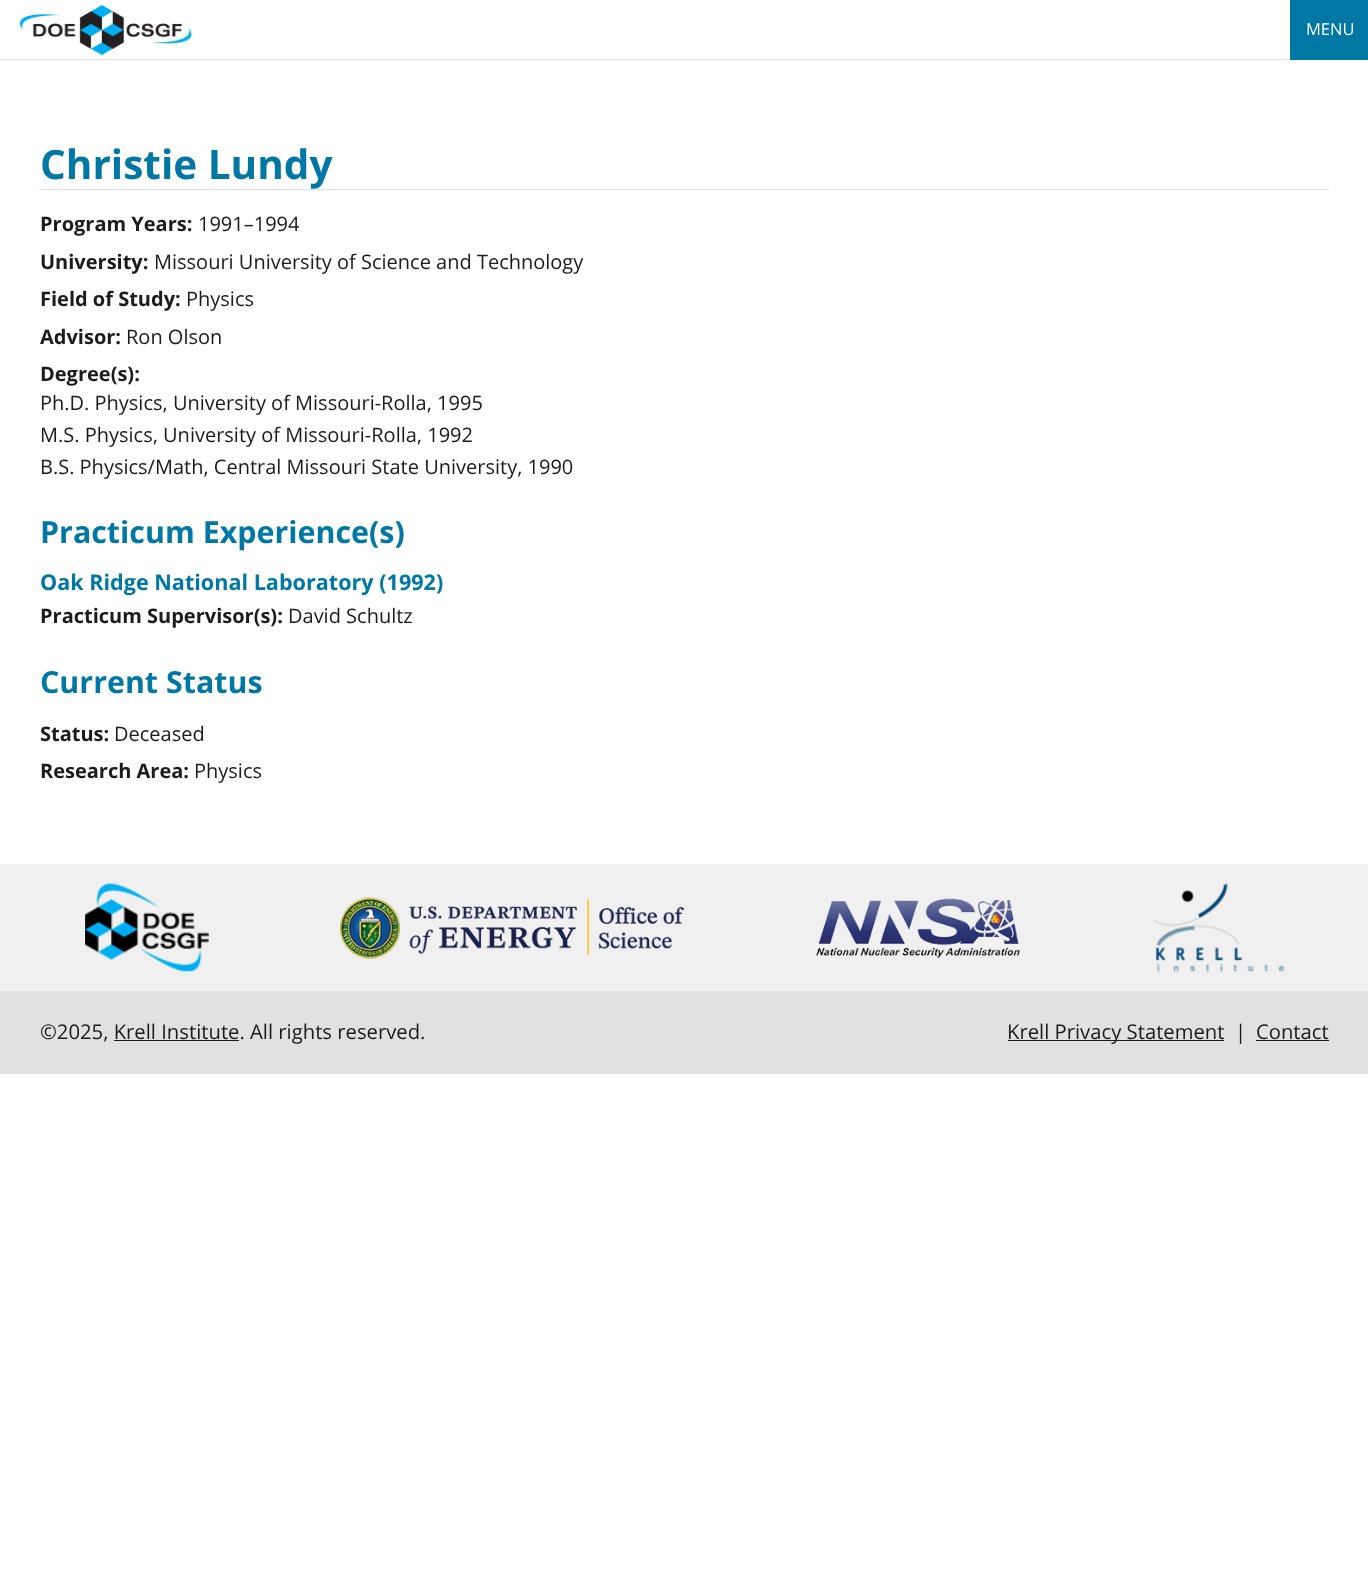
async function draw(canvas) {
  canvas.width = 1368;
  canvas.height = 1589;
  const ctx = canvas.getContext('2d');
  ctx.miterLimit = 4;
  ctx.fontKerning = 'normal';
  function label(s, x, y, font, color) {
    ctx.font = font;
    ctx.fillStyle = color;
    ctx.fillText(s, x, y);
  }
  function rect(x, y, w, h, color) {
    ctx.fillStyle = color;
    ctx.fillRect(x, y, w, h);
  }
  async function image(src, x, y, w, h) {
    const img = new Image();
    img.src = src;
    await img.decode();
    ctx.drawImage(img, x, y, w, h);
  }

  rect(0, 0, 1368, 1589, '#fff');
  rect(0, 59, 1290, 1, '#dfe1e2');
  await image('assets/img1.png', 20, 5, 172, 50);
  rect(1290, 0, 78, 60, '#0078a3');
  label('MENU', 1306, 35, '16.5px Open Sans', '#fff');
  rect(40, 189, 1289, 1, '#dfe1e2');
  label('Christie Lundy', 40, 179, 'bold 40.5px Open Sans', '#0078a3');
  label('Program Years:', 40, 231, 'bold 20px Open Sans', '#1b1b1b');
  label('1991–1994', 198, 231, '20px Open Sans', '#1b1b1b');
  label('University:', 40, 269, 'bold 20px Open Sans', '#1b1b1b');
  label('Missouri University of Science and Technology', 154, 269, '20px Open Sans', '#1b1b1b');
  label('Field of Study:', 40, 306, 'bold 20px Open Sans', '#1b1b1b');
  label('Physics', 186, 306, '20px Open Sans', '#1b1b1b');
  label('Advisor:', 40, 344, 'bold 20px Open Sans', '#1b1b1b');
  label('Ron Olson', 126, 344, '20px Open Sans', '#1b1b1b');
  label('Degree(s):', 40, 381, 'bold 20px Open Sans', '#1b1b1b');
  label('Ph.D. Physics, University of Missouri-Rolla, 1995', 40, 410, '20px Open Sans', '#1b1b1b');
  label('M.S. Physics, University of Missouri-Rolla, 1992', 40, 442, '20px Open Sans', '#1b1b1b');
  label('B.S. Physics/Math, Central Missouri State University, 1990', 40, 474, '20px Open Sans', '#1b1b1b');
  label('Practicum Experience(s)', 40, 543, 'bold 30.4px Open Sans', '#0078a3');
  label('Oak Ridge National Laboratory (1992)', 40, 590, 'bold 21.6px Open Sans', '#0078a3');
  label('Practicum Supervisor(s):', 40, 623, 'bold 20px Open Sans', '#1b1b1b');
  label('David Schultz', 288, 623, '20px Open Sans', '#1b1b1b');
  label('Current Status', 40, 693, 'bold 30.4px Open Sans', '#0078a3');
  label('Status:', 40, 741, 'bold 20px Open Sans', '#1b1b1b');
  label('Deceased', 114, 741, '20px Open Sans', '#1b1b1b');
  label('Research Area:', 40, 778, 'bold 20px Open Sans', '#1b1b1b');
  label('Physics', 194, 778, '20px Open Sans', '#1b1b1b');
  rect(0, 864, 1368, 127, '#f0f0f0');
  await image('assets/img2.png', 85, 883, 124, 89);
  await image('assets/img3.png', 340, 897, 344, 62);
  await image('assets/img4.png', 815, 898, 205, 60);
  await image('assets/img5.png', 1153, 883, 131, 89);
  rect(0, 991, 1368, 83, '#dfe1e2');
  label('©2025, Krell Institute. All rights reserved.', 40, 1039, '20.25px Open Sans', '#1b1b1b');
  rect(114, 1040, 125, 1, '#1b1b1b');
  rect(1008, 1040, 216, 1, '#1b1b1b');
  label('Krell Privacy Statement', 1007, 1039, '20.25px Open Sans', '#1b1b1b');
  label('|', 1235, 1039, '20.25px Open Sans', '#1b1b1b');
  label('Contact', 1256, 1039, '20.25px Open Sans', '#1b1b1b');
  rect(1256, 1040, 73, 1, '#1b1b1b');
}

draw(document.querySelector('canvas'));
